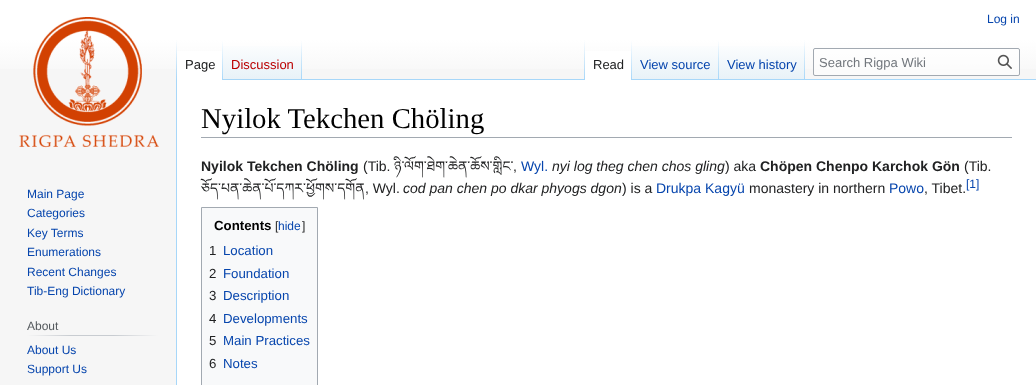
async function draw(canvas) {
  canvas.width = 1036;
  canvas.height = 385;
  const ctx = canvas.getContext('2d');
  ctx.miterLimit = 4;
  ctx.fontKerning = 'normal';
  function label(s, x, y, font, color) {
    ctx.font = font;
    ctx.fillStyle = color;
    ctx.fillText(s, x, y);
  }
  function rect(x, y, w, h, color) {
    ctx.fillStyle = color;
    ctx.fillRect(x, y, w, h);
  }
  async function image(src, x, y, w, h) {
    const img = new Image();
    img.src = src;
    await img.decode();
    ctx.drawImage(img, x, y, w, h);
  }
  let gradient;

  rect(0, 0, 1036, 385, '#f6f6f6');
  gradient = ctx.createLinearGradient(518, 0, 518, 80);
  gradient.addColorStop(0.5, '#fff');
  gradient.addColorStop(1, '#f6f6f6');
  ctx.fillStyle = gradient;
  ctx.fillRect(0, 0, 1036, 69);
  label('Log in', 987, 23, '12px Liberation Sans', '#0645ad');
  rect(176, 79, 1, 306, '#a7d7f9');
  gradient = ctx.createLinearGradient(177, 40, 177, 80);
  gradient.addColorStop(0, '#a7d7f900');
  gradient.addColorStop(1, '#a7d7f9');
  ctx.fillStyle = gradient;
  ctx.fillRect(176, 40, 1, 40);
  rect(177, 51, 45, 29, '#fff');
  gradient = ctx.createLinearGradient(223, 40, 223, 80);
  gradient.addColorStop(0, '#fff');
  gradient.addColorStop(1, '#a7d7f9');
  ctx.fillStyle = gradient;
  ctx.fillRect(222, 40, 1, 40);
  label('Page', 185, 69, '13px Liberation Sans', '#202122');
  gradient = ctx.createLinearGradient(263, 80, 263, 40);
  gradient.addColorStop(0, '#77c1f6');
  gradient.addColorStop(0.03, '#e8f2f8');
  gradient.addColorStop(1, '#fff');
  ctx.fillStyle = gradient;
  ctx.fillRect(223, 46, 79, 34);
  gradient = ctx.createLinearGradient(302, 40, 302, 80);
  gradient.addColorStop(0, '#a7d7f900');
  gradient.addColorStop(1, '#a7d7f9');
  ctx.fillStyle = gradient;
  ctx.fillRect(301, 40, 1, 40);
  label('Discussion', 231, 69, '13px Liberation Sans', '#ba0000');
  rect(302, 79, 734, 1, '#a7d7f9');
  gradient = ctx.createLinearGradient(585, 40, 585, 80);
  gradient.addColorStop(0, '#a7d7f900');
  gradient.addColorStop(1, '#a7d7f9');
  ctx.fillStyle = gradient;
  ctx.fillRect(584, 40, 1, 40);
  rect(585, 51, 46, 29, '#fff');
  gradient = ctx.createLinearGradient(632, 40, 632, 80);
  gradient.addColorStop(0, '#fff');
  gradient.addColorStop(1, '#a7d7f9');
  ctx.fillStyle = gradient;
  ctx.fillRect(631, 40, 1, 40);
  label('Read', 593, 69, '13px Liberation Sans', '#202122');
  gradient = ctx.createLinearGradient(676, 80, 676, 40);
  gradient.addColorStop(0, '#77c1f6');
  gradient.addColorStop(0.03, '#e8f2f8');
  gradient.addColorStop(1, '#fff');
  ctx.fillStyle = gradient;
  ctx.fillRect(632, 46, 87, 33);
  gradient = ctx.createLinearGradient(719, 40, 719, 80);
  gradient.addColorStop(0, '#a7d7f900');
  gradient.addColorStop(1, '#a7d7f9');
  ctx.fillStyle = gradient;
  ctx.fillRect(718, 40, 1, 40);
  label('View source', 640, 69, '13px Liberation Sans', '#0645ad');
  gradient = ctx.createLinearGradient(762, 80, 762, 40);
  gradient.addColorStop(0, '#77c1f6');
  gradient.addColorStop(0.03, '#e8f2f8');
  gradient.addColorStop(1, '#fff');
  ctx.fillStyle = gradient;
  ctx.fillRect(719, 46, 86, 33);
  gradient = ctx.createLinearGradient(805, 40, 805, 80);
  gradient.addColorStop(0, '#a7d7f900');
  gradient.addColorStop(1, '#a7d7f9');
  ctx.fillStyle = gradient;
  ctx.fillRect(804, 40, 1, 40);
  label('View history', 727, 69, '13px Liberation Sans', '#0645ad');
  ctx.fillStyle = '#ffffff80';
  ctx.beginPath();
  ctx.roundRect(813.5, 48.5, 206, 27, 1.5);
  ctx.fill();
  ctx.strokeStyle = '#a2a9b1';
  ctx.stroke();
  label('Search Rigpa Wiki', 819, 67, '13px Liberation Sans', '#72777d');
  await image('assets/img1.png', 997, 54, 15, 15);
  await image('assets/img2.png', 19, 17, 141, 131);
  label('Main Page', 27, 198, '12px Liberation Sans', '#0645ad');
  label('Categories', 27, 217, '12px Liberation Sans', '#0645ad');
  label('Key Terms', 27, 237, '12px Liberation Sans', '#0645ad');
  label('Enumerations', 27, 256, '12px Liberation Sans', '#0645ad');
  label('Recent Changes', 27, 276, '12px Liberation Sans', '#0645ad');
  label('Tib-Eng Dictionary', 27, 295, '12px Liberation Sans', '#0645ad');
  gradient = ctx.createLinearGradient(27, 336, 158, 336);
  gradient.addColorStop(0, '#f6f6f6');
  gradient.addColorStop(0.33, '#c8ccd1');
  gradient.addColorStop(0.66, '#c8ccd1');
  gradient.addColorStop(1, '#f6f6f6');
  ctx.fillStyle = gradient;
  ctx.fillRect(27, 335, 131, 1);
  label('About', 27, 330, '12px Liberation Sans', '#54595d');
  label('About Us', 27, 354, '12px Liberation Sans', '#0645ad');
  label('Support Us', 27, 373, '12px Liberation Sans', '#0645ad');
  rect(177, 80, 859, 305, '#fff');
  rect(201, 137, 811, 1, '#a2a9b1');
  label('Nyilok Tekchen Chöling', 201, 128, '28.75px Liberation Serif', '#000');
  label('Nyilok Tekchen Chöling', 201, 171, 'bold 14px Liberation Sans', '#202122');
  label('(Tib.', 363, 171, '14px Liberation Sans', '#202122');
  label('ཉི་ལོག་ཐེག་ཆེན་ཆོས་གླིང་', 394, 171, '14px Noto Serif Tibetan', '#202122');
  label(',', 513, 171, '14px Liberation Sans', '#202122');
  label('Wyl.', 521, 171, '14px Liberation Sans', '#0645ad');
  label('nyi log theg chen chos gling', 552, 171, 'italic 14px Liberation Sans', '#202122');
  label(') aka', 725, 171, '14px Liberation Sans', '#202122');
  label('Chöpen Chenpo Karchok Gön', 760, 171, 'bold 14px Liberation Sans', '#202122');
  label('(Tib.', 964, 171, '14px Liberation Sans', '#202122');
  label('ཅོད་པན་ཆེན་པོ་དཀར་ཕྱོགས་དགོན', 201, 193, '14px Noto Serif Tibetan', '#202122');
  label(', Wyl.', 365, 193, '14px Liberation Sans', '#202122');
  label('cod pan chen po dkar phyogs dgon', 403, 193, 'italic 14px Liberation Sans', '#202122');
  label(') is a', 622, 193, '14px Liberation Sans', '#202122');
  label('Drukpa Kagyü', 656, 193, '14px Liberation Sans', '#0645ad');
  label('monastery in northern', 749, 193, '14px Liberation Sans', '#202122');
  label('Powo', 889, 193, '14px Liberation Sans', '#0645ad');
  label(', Tibet.', 924, 193, '14px Liberation Sans', '#202122');
  label('[1]', 966, 188, '12px Liberation Sans', '#0645ad');
  ctx.fillStyle = '#f8f9fa';
  ctx.beginPath();
  ctx.rect(201.5, 207.5, 116, 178);
  ctx.fill();
  ctx.stroke();
  label('Contents', 214, 230, 'bold 13.25px Liberation Sans', '#000');
  label('[', 275, 230, '12px Liberation Sans', '#202122');
  label('hide', 278, 230, '12px Liberation Sans', '#0645ad');
  label(']', 302, 230, '12px Liberation Sans', '#202122');
  label('1', 209, 255, '13.25px Liberation Sans', '#202122');
  label('Location', 223, 255, '13.25px Liberation Sans', '#0645ad');
  label('2', 209, 278, '13.25px Liberation Sans', '#202122');
  label('Foundation', 223, 278, '13.25px Liberation Sans', '#0645ad');
  label('3', 209, 300, '13.25px Liberation Sans', '#202122');
  label('Description', 223, 300, '13.25px Liberation Sans', '#0645ad');
  label('4', 209, 323, '13.25px Liberation Sans', '#202122');
  label('Developments', 223, 323, '13.25px Liberation Sans', '#0645ad');
  label('5', 209, 345, '13.25px Liberation Sans', '#202122');
  label('Main Practices', 223, 345, '13.25px Liberation Sans', '#0645ad');
  label('6', 209, 368, '13.25px Liberation Sans', '#202122');
  label('Notes', 223, 368, '13.25px Liberation Sans', '#0645ad');
}

draw(document.querySelector('canvas'));
